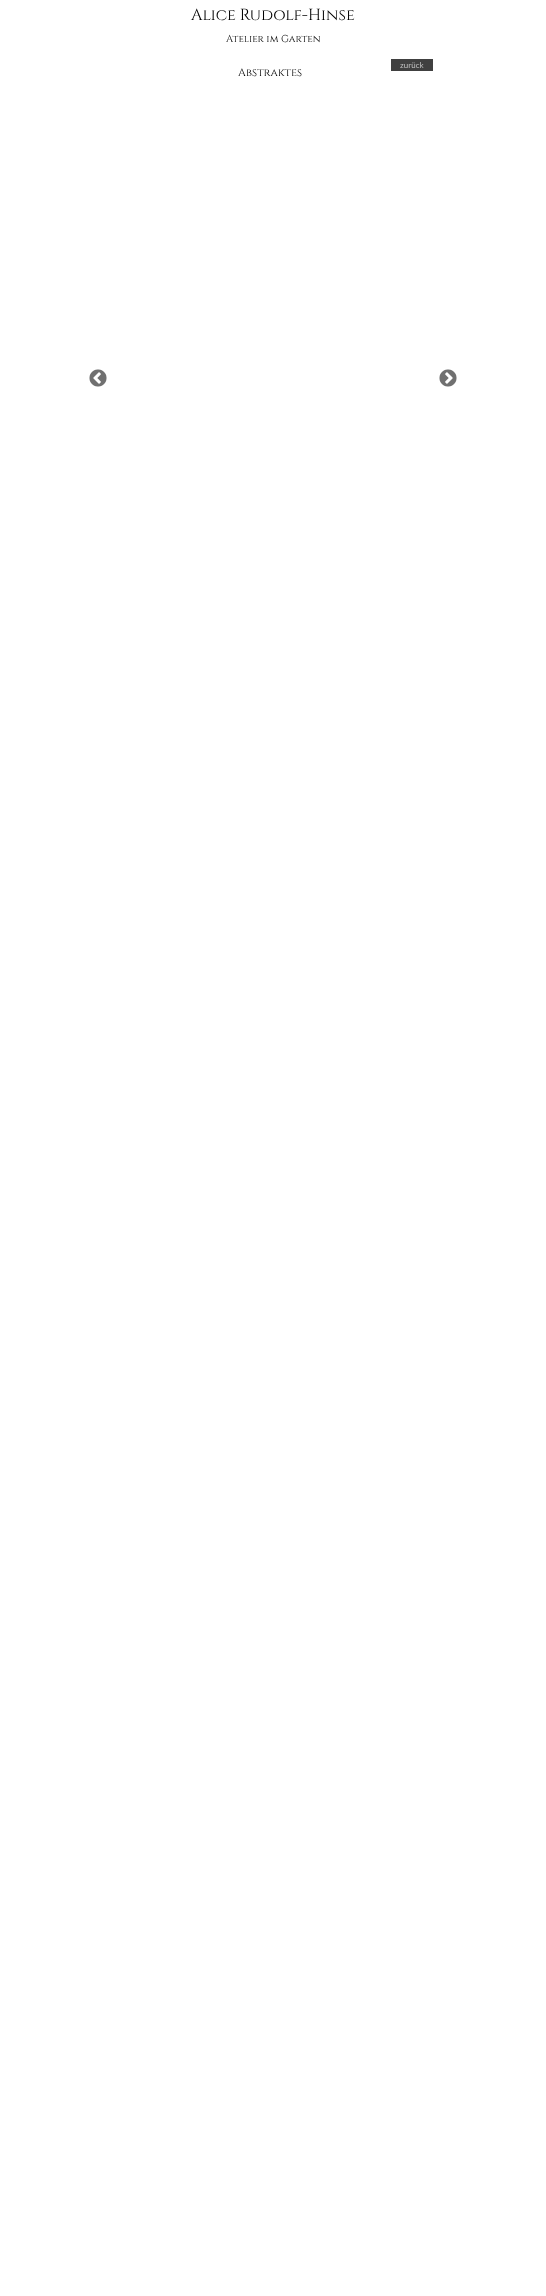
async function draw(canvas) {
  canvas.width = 546;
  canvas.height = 2296;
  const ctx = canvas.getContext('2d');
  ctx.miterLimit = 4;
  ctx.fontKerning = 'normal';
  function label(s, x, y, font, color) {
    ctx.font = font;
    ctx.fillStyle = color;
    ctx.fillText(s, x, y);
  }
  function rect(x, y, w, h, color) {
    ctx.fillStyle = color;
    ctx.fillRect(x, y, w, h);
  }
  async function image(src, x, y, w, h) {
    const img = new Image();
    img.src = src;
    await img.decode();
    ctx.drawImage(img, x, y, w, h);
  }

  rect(0, 0, 546, 2296, '#fff');
  label('Alice Rudolf-Hinse', 191, 20, '16px Cinzel', '#000');
  label('Atelier im Garten', 226, 42, '10px Cinzel', '#000');
  rect(391, 59, 42, 12, '#404040');
  label('zurück', 400, 68, '8px Lato', '#c0c0c0');
  label('Abstraktes', 238, 76, '11px Cinzel', '#000');
  await image('assets/img1.png', 89, 369, 18, 18);
  await image('assets/img2.png', 439, 369, 18, 18);
}

draw(document.querySelector('canvas'));
